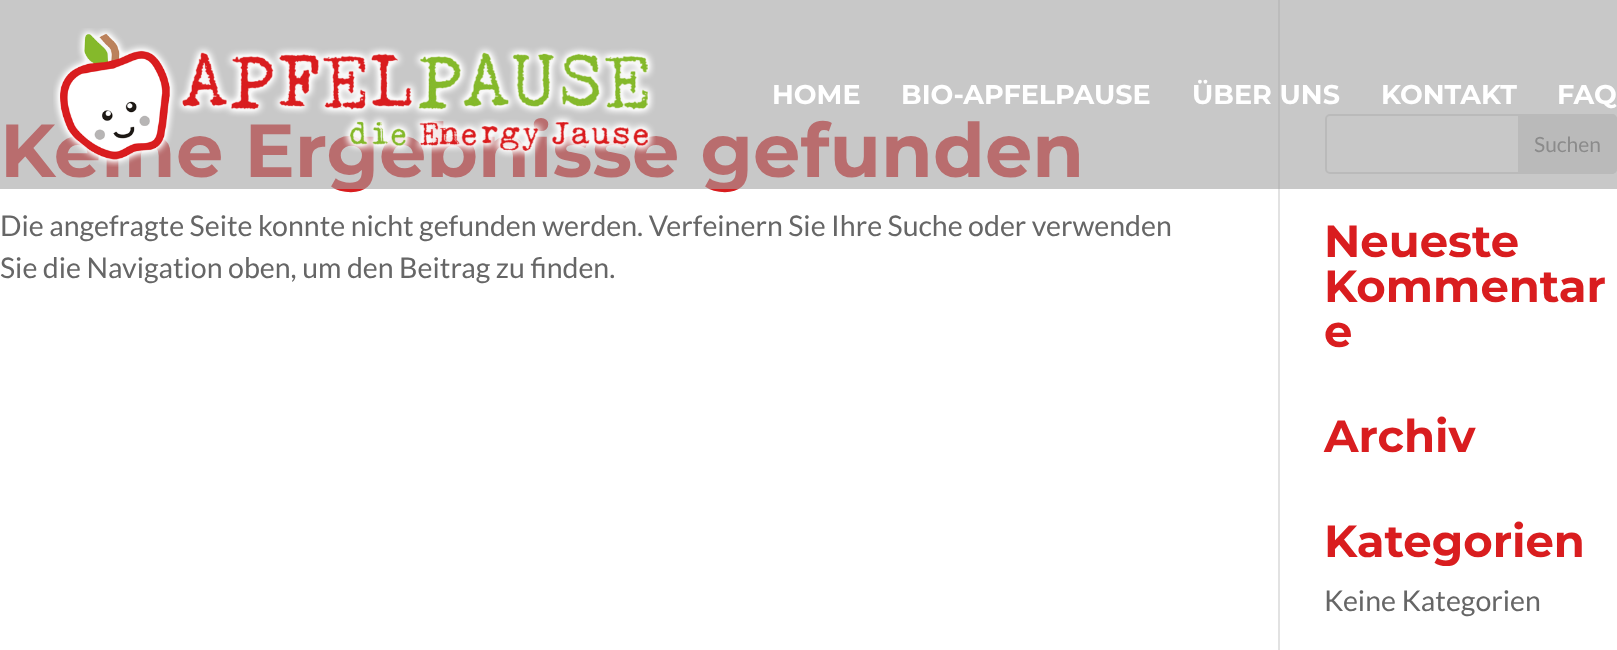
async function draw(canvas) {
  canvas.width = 1617;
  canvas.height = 650;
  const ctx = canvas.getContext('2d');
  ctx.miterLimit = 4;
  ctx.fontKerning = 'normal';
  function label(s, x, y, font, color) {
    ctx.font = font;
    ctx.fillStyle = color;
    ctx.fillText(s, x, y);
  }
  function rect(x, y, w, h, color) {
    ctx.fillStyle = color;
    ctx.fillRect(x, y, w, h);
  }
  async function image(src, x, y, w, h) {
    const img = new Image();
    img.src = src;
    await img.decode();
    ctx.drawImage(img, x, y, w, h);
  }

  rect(0, 0, 1617, 650, '#fff');
  rect(1278, 0, 2, 650, '#e2e2e2');
  label('Keine Ergebnisse gefunden', 0, 177, 'bold 75px Montserrat', '#d91d1f');
  ctx.beginPath();
  ctx.roundRect(1326, 115, 290, 58, 4);
  ctx.strokeStyle = '#ddd';
  ctx.lineWidth = 2;
  ctx.stroke();
  ctx.fillStyle = '#ddd';
  ctx.beginPath();
  ctx.roundRect(1519, 115, 97, 58, [0, 4, 4, 0]);
  ctx.fill();
  ctx.stroke();
  label('Suchen', 1534, 152, '21px Lato', '#666');
  rect(0, 0, 1617, 189, '#a3a3a399');
  await image('assets/img1.png', 53, 28, 603, 139);
  label('HOME', 772, 104, 'bold 27px Montserrat', '#fff');
  label('BIO-APFELPAUSE', 901, 104, 'bold 27px Montserrat', '#fff');
  label('ÜBER UNS', 1192, 104, 'bold 27px Montserrat', '#fff');
  label('KONTAKT', 1381, 104, 'bold 27px Montserrat', '#fff');
  label('FAQ', 1557, 104, 'bold 27px Montserrat', '#fff');
  label('Die angefragte Seite konnte nicht gefunden werden. Verfeinern Sie Ihre Suche oder verwenden', 0, 236, '28.5px Lato', '#666');
  label('Sie die Navigation oben, um den Beitrag zu finden.', 0, 278, '28.5px Lato', '#666');
  label('Neueste', 1324, 257, 'bold 45px Montserrat', '#d91d1f');
  label('Kommentar', 1324, 302, 'bold 45px Montserrat', '#d91d1f');
  label('e', 1324, 347, 'bold 45px Montserrat', '#d91d1f');
  label('Archiv', 1324, 452, 'bold 45px Montserrat', '#d91d1f');
  label('Kategorien', 1324, 557, 'bold 45px Montserrat', '#d91d1f');
  label('Keine Kategorien', 1324, 611, '28.5px Lato', '#666');
}

draw(document.querySelector('canvas'));
